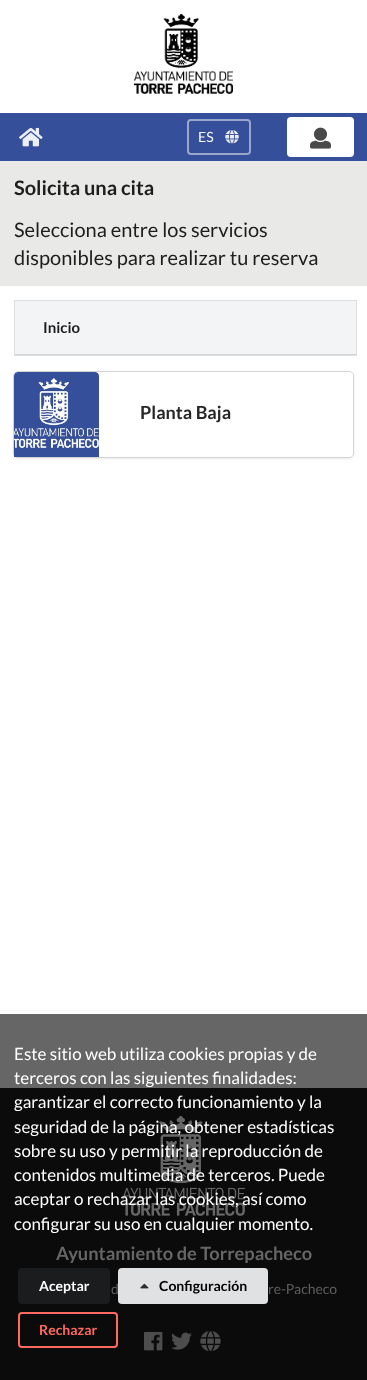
async function draw(canvas) {
  canvas.width = 367;
  canvas.height = 1380;
  const ctx = canvas.getContext('2d');
  ctx.miterLimit = 4;
  ctx.fontKerning = 'normal';
  function label(s, x, y, font, color) {
    ctx.font = font;
    ctx.fillStyle = color;
    ctx.fillText(s, x, y);
  }
  function rect(x, y, w, h, color) {
    ctx.fillStyle = color;
    ctx.fillRect(x, y, w, h);
  }
  function roundedRect(x, y, w, h, r, color) {
    ctx.fillStyle = color;
    ctx.beginPath();
    ctx.roundRect(x, y, w, h, r);
    ctx.fill();
  }
  async function image(src, x, y, w, h) {
    const img = new Image();
    img.src = src;
    await img.decode();
    ctx.drawImage(img, x, y, w, h);
  }

  rect(0, 0, 367, 1380, '#fff');
  rect(0, 1014, 367, 74, '#666');
  await image('assets/img1.png', 134, 14, 99, 80);
  rect(0, 113, 367, 48, '#354f9a');
  await image('assets/img2.png', 19, 127, 24, 20);
  ctx.beginPath();
  ctx.roundRect(188, 120, 62, 34, 3);
  ctx.strokeStyle = '#9aa7cd';
  ctx.lineWidth = 2;
  ctx.stroke();
  label('ES', 198, 142, '14px Lato', '#f9fafb');
  await image('assets/img3.png', 225, 130, 14, 14);
  roundedRect(287, 117, 67, 40, 4, '#fff');
  await image('assets/img4.png', 310, 127, 21, 22);
  rect(0, 161, 367, 125, '#e9e9e8');
  label('Solicita una cita', 14, 195, 'bold 20px Lato', '#1e1e1e');
  label('Selecciona entre los servicios', 14, 237, '20px Lato', '#1e1e1e');
  label('disponibles para realizar tu reserva', 14, 265, '20px Lato', '#1e1e1e');
  ctx.strokeStyle = '#dedede';
  ctx.lineWidth = 1;
  ctx.strokeRect(14.5, 300.5, 342, 55);
  rect(15, 301, 341, 53, '#f3f4f5');
  rect(15, 354, 341, 1, '#d4d5d6');
  label('Inicio', 43, 333, 'bold 15px Lato', '#1e1e1e');
  ctx.beginPath();
  ctx.roundRect(13.5, 371.5, 340, 86, 4.5);
  ctx.strokeStyle = '#d4d4d5';
  ctx.stroke();
  ctx.fillStyle = '#d4d4d5';
  ctx.filter = 'blur(1.5px)';
  ctx.beginPath();
  ctx.roundRect(14, 373, 339, 85, 4);
  ctx.fill();
  ctx.filter = 'none';
  roundedRect(14, 372, 339, 85, 4, '#fff');
  await image('assets/img5.png', 14, 372, 85, 85);
  label('Planta Baja', 140, 419, 'bold 18px Lato', '#262626');
  label('Este sitio web utiliza cookies propias y de', 14, 1060, '17px Lato', '#fff');
  label('terceros con las siguientes finalidades:', 14, 1084, '17px Lato', '#fff');
  rect(0, 1088, 367, 292, '#0b0b0c');
  label('garantizar el correcto funcionamiento y la', 14, 1108, '17px Lato', '#fff');
  await image('assets/img7.png', 122, 1116, 123, 100);
  label('seguridad de la página, obtener estadísticas', 14, 1133, '17px Lato', '#fff');
  label('sobre su uso y permitir la reproducción de', 14, 1157, '17px Lato', '#fff');
  label('contenidos multimedia de terceros. Puede', 14, 1181, '17px Lato', '#fff');
  label('aceptar o rechazar las cookies, así como', 14, 1205, '17px Lato', '#fff');
  label('configurar su uso en cualquier momento.', 14, 1230, '17px Lato', '#fff');
  roundedRect(18, 1268, 92, 36, 4, '#1b1c1d');
  label('Aceptar', 39, 1291, 'bold 14px Lato', '#fff');
  roundedRect(118, 1268, 150, 36, 4, '#e0e1e2');
  await image('assets/img6.png', 140, 1283, 9, 6);
  label('Configuración', 159, 1291, 'bold 14px Lato', '#000');
  ctx.beginPath();
  ctx.roundRect(19, 1313, 98, 34, 3);
  ctx.strokeStyle = '#ff695e';
  ctx.lineWidth = 2;
  ctx.stroke();
  label('Rechazar', 39, 1335, 'bold 14px Lato', '#ff695e');
  label('Ayuntamiento de Torrepacheco', 56, 1260, 'bold 18.25px Lato', '#666');
  label('d', 111, 1294, '14px Lato', '#5d5d5d');
  label('re-Pacheco', 268, 1294, '14px Lato', '#5d5d5d');
  await image('assets/img8.png', 144, 1331, 19, 20);
  await image('assets/img9.png', 171, 1332, 21, 18);
  await image('assets/img10.png', 200, 1331, 21, 21);
}

draw(document.querySelector('canvas'));
